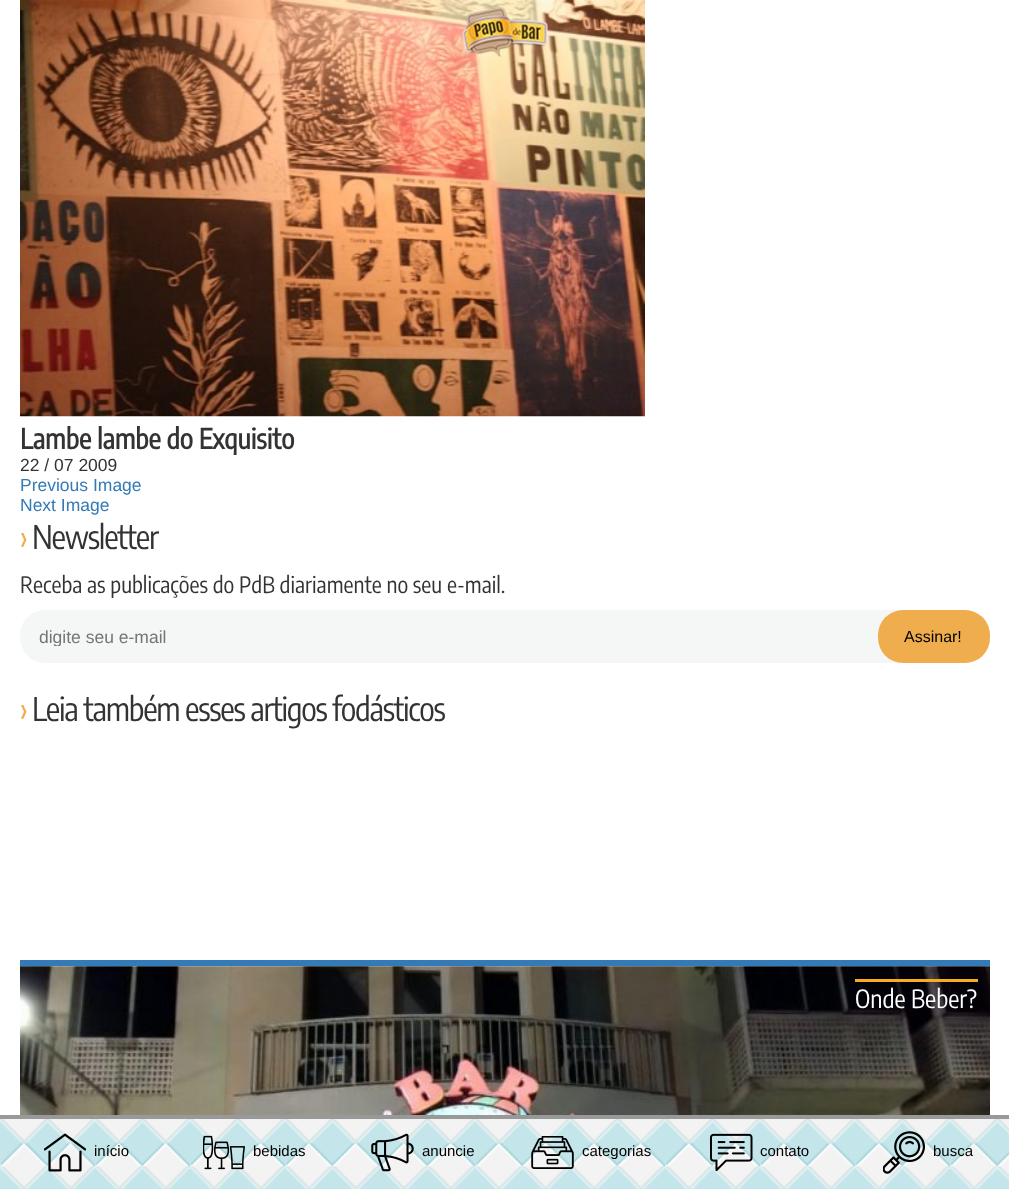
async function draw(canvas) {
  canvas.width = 1009;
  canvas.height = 1189;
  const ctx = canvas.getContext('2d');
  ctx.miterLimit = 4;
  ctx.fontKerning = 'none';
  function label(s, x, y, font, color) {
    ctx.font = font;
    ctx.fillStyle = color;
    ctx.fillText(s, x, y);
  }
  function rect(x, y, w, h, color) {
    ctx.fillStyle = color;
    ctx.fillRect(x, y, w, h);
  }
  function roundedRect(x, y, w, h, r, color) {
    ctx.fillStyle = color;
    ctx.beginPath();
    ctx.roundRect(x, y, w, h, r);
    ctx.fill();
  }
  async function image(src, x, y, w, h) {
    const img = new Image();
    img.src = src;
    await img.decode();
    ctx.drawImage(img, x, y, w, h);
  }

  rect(0, 0, 1009, 1189, '#fff');
  await image('assets/img1.png', 20, 0, 625, 417);
  label('Lambe lambe do Exquisito', 20, 449, 'bold 27.5px Encode Sans Condensed', '#333');
  label('22 / 07 2009', 20, 471, '17.5px Liberation Sans', '#333');
  label('Previous Image', 20, 491, '17.5px Liberation Sans', '#337ab7');
  label('Next Image', 20, 511, '17.5px Liberation Sans', '#337ab7');
  ctx.letterSpacing = '-1.25px';
  label('› ︎', 20, 549, '32.5px Encode Sans Condensed', '#f0ad4e');
  label('Newsletter', 32, 549, '32.5px Encode Sans Condensed', '#333');
  ctx.letterSpacing = '0px';
  label('Receba as publicações do PdB diariamente no seu e-mail.', 20, 593, '22.5px Encode Sans Condensed', '#333');
  ctx.fillStyle = '#f5f6f6';
  ctx.beginPath();
  ctx.roundRect(20, 610, 933, 53, [25, 0, 0, 25]);
  ctx.fill();
  ctx.save();
  ctx.beginPath();
  ctx.rect(39, 626, 914, 20);
  ctx.clip();
  label('digite seu e-mail', 39, 643, '17.5px Liberation Sans', '#757575');
  ctx.restore();
  roundedRect(878, 610, 112, 53, 25, '#f0ad4e');
  label('Assinar!', 904, 642, '16px Liberation Sans', '#000');
  ctx.letterSpacing = '-1.25px';
  label('› ︎', 20, 721, '32.5px Encode Sans Condensed', '#f0ad4e');
  label('Leia também esses artigos fodásticos', 32, 721, '32.5px Encode Sans Condensed', '#333');
  rect(20, 960, 970, 6, '#337ab7');
  await image('assets/img2.png', 20, 966, 970, 1);
  await image('assets/img3.png', 20, 966, 970, 149);
  rect(855, 979, 123, 3, '#f9ab21');
  ctx.letterSpacing = '0px';
  label('Onde Beber?', 855, 1008, '25px Encode Sans Condensed', '#fff');
  await image('assets/img4.png', 462, 7, 86, 50);
  await image('assets/img5.png', 0, 1119, 1009, 70);
  rect(0, 1115, 1009, 4, '#999');
  await image('assets/img6.png', 44, 1133, 42, 39);
  label('início', 94, 1156, '15px Liberation Sans', '#000');
  await image('assets/img7.png', 203, 1135, 42, 35);
  label('bebidas', 253, 1156, '15px Liberation Sans', '#000');
  await image('assets/img8.png', 371, 1133, 43, 39);
  label('anuncie', 422, 1156, '15px Liberation Sans', '#000');
  await image('assets/img9.png', 531, 1136, 43, 33);
  label('categorias', 582, 1156, '15px Liberation Sans', '#000');
  await image('assets/img10.png', 710, 1133, 43, 39);
  label('contato', 760, 1156, '15px Liberation Sans', '#000');
  await image('assets/img11.png', 883, 1131, 42, 43);
  label('busca', 933, 1156, '15px Liberation Sans', '#000');
}

draw(document.querySelector('canvas'));
